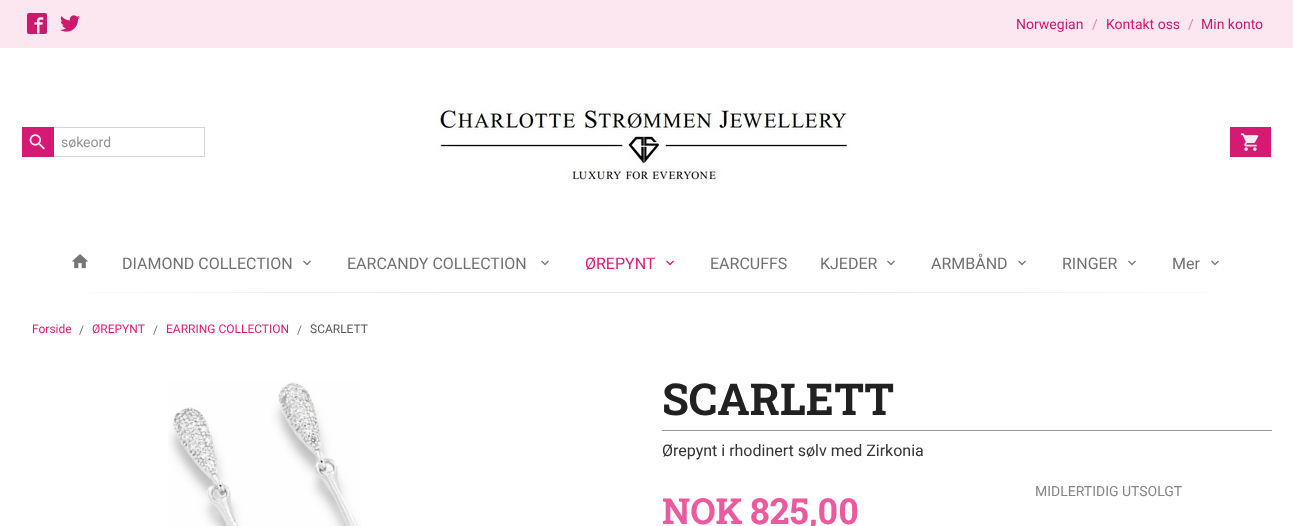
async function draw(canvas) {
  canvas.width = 1293;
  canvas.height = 526;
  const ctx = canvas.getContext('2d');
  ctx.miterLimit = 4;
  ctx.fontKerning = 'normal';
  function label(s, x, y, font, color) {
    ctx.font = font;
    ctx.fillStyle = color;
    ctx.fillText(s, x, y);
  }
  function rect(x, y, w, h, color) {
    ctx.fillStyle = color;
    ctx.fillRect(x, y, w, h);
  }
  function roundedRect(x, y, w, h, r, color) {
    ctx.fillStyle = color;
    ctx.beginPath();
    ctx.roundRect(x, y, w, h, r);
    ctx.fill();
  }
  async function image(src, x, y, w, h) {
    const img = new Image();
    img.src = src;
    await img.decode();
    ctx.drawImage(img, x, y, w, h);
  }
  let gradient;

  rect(0, 0, 1293, 526, '#fce7f1');
  roundedRect(27, 13, 20, 21, 2, '#cb196e');
  await image('assets/img1.png', 34, 17, 10, 17);
  await image('assets/img2.png', 60, 15, 20, 17);
  label('Norwegian', 1016, 29, '14px Roboto', '#cb196e');
  label('/', 1092, 29, '14px Roboto', '#e480b0');
  label('Kontakt oss', 1106, 29, '14px Roboto', '#cb196e');
  label('/', 1188, 29, '14px Roboto', '#e480b0');
  label('Min konto', 1201, 29, '14px Roboto', '#cb196e');
  rect(0, 48, 1293, 478, '#fff');
  ctx.strokeStyle = '#d4d4d4';
  ctx.strokeRect(22.5, 127.5, 182, 29);
  rect(22, 127, 32, 30, '#d41a73');
  await image('assets/img3.png', 29, 134, 16, 16);
  label('søkeord', 61, 147, '14px Roboto', '#929292');
  await image('assets/img4.png', 435, 104, 415, 80);
  rect(1230, 127, 41, 30, '#d41a73');
  await image('assets/img5.png', 1240, 133, 19, 18);
  await image('assets/img6.png', 71, 254, 18, 15);
  label('DIAMOND COLLECTION', 122, 269, '16px Roboto', '#717171');
  await image('assets/img7.png', 303, 260, 8, 6);
  label('EARCANDY COLLECTION', 347, 269, '16px Roboto', '#717171');
  await image('assets/img7.png', 541, 260, 8, 6);
  label('ØREPYNT', 585, 269, '16px Roboto', '#dd1c78');
  await image('assets/img8.png', 666, 260, 8, 6);
  label('EARCUFFS', 710, 269, '16px Roboto', '#717171');
  label('KJEDER', 820, 269, '16px Roboto', '#717171');
  await image('assets/img7.png', 887, 260, 8, 6);
  label('ARMBÅND', 931, 269, '16px Roboto', '#717171');
  await image('assets/img7.png', 1018, 260, 8, 6);
  label('RINGER', 1062, 269, '16px Roboto', '#717171');
  await image('assets/img7.png', 1128, 260, 8, 6);
  label('Mer', 1172, 269, '16px Roboto', '#717171');
  await image('assets/img7.png', 1211, 260, 8, 6);
  gradient = ctx.createLinearGradient(7, 293, 1287, 292);
  gradient.addColorStop(0, '#fff');
  gradient.addColorStop(0.35, '#e9e9e9');
  gradient.addColorStop(0.65, '#e9e9e9');
  gradient.addColorStop(1, '#fff');
  ctx.fillStyle = gradient;
  ctx.fillRect(58, 292, 1178, 1);
  label('Forside', 32, 333, '12px Roboto', '#dd1c78');
  label('/', 79, 334, '12px Roboto', '#717171');
  label('ØREPYNT', 92, 333, '12px Roboto', '#dd1c78');
  label('/', 153, 334, '12px Roboto', '#717171');
  label('EARRING COLLECTION', 166, 333, '12px Roboto', '#dd1c78');
  label('/', 297, 334, '12px Roboto', '#717171');
  label('SCARLETT', 310, 333, '12px Roboto', '#585858');
  await image('assets/img9.png', 168, 381, 193, 145);
  rect(662, 430, 610, 1, '#999');
  label('SCARLETT', 662, 415, 'bold 44px Roboto Slab', '#212121');
  label('Ørepynt i rhodinert sølv med Zirkonia', 662, 456, '16px Roboto', '#333');
  label('MIDLERTIDIG UTSOLGT', 1035, 496, '14px Roboto', '#858585');
  label('NOK', 662, 524, 'bold 36px Roboto Slab', '#ea5a9f');
  label('825,00', 750, 524, 'bold 36px Roboto Slab', '#ea5a9f');
}

draw(document.querySelector('canvas'));
